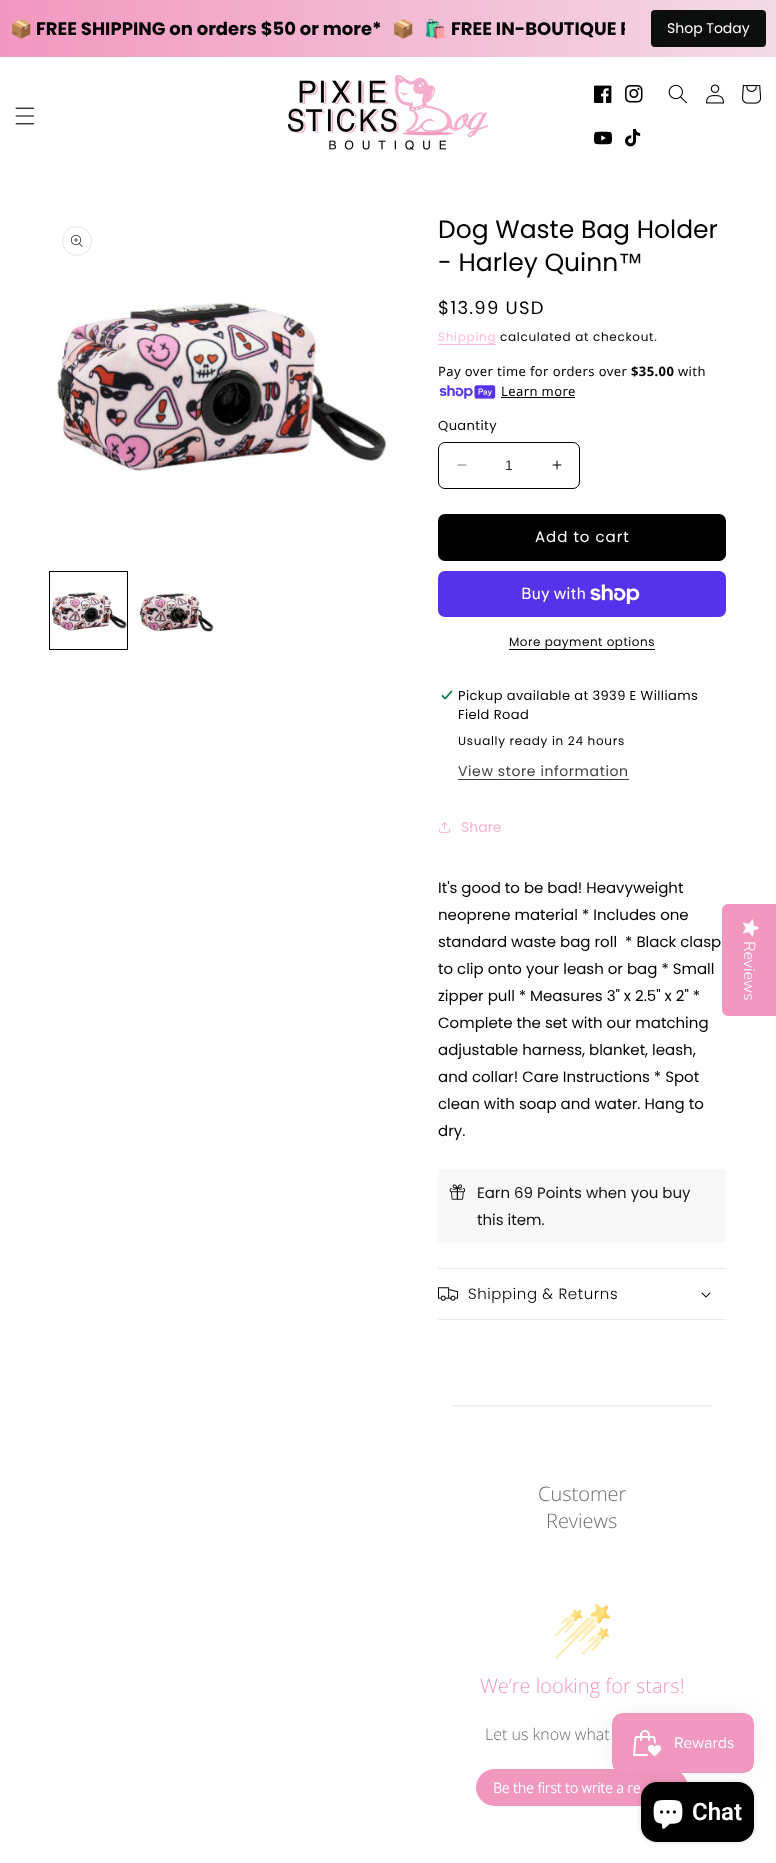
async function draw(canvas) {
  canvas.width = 776;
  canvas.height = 1863;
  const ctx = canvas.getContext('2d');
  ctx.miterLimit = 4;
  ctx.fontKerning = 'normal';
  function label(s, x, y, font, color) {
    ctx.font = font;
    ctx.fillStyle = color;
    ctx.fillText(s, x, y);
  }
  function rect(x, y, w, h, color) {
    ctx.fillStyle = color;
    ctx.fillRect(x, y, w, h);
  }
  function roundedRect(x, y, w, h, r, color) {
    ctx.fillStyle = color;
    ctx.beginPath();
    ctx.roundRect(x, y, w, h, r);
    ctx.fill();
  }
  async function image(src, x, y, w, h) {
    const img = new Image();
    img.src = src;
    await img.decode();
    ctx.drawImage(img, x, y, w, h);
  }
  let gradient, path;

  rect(0, 0, 776, 1863, '#fff');
  gradient = ctx.createLinearGradient(0, 29, 776, 28);
  gradient.addColorStop(0, '#f297c0');
  gradient.addColorStop(1, '#f3dae5');
  ctx.fillStyle = gradient;
  ctx.fillRect(0, 0, 776, 57);
  label('📦', 10, 35, 'bold 18px Noto Color Emoji', '#000');
  label('FREE SHIPPING on orders $50 or more*', 36, 35, 'bold 18px Poppins', '#000');
  label('📦', 392, 35, 'bold 18px Noto Color Emoji', '#000');
  label('🛍️', 424, 35, 'bold 18px Noto Color Emoji', '#000');
  ctx.save();
  ctx.beginPath();
  ctx.rect(10, 18, 615, 21);
  ctx.clip();
  label('FREE IN-BOUTIQUE P', 451, 35, 'bold 18px Poppins', '#000');
  ctx.restore();
  roundedRect(651, 10, 115, 37, 4, '#0c0d0d');
  label('Shop Today', 667, 33, '14px Poppins', '#fff');
  await image('assets/img1.png', 15, 107, 20, 18);
  await image('assets/img2.png', 288, 75, 200, 75);
  await image('assets/img3.png', 594, 85, 18, 18);
  await image('assets/img4.png', 625, 85, 18, 18);
  await image('assets/img5.png', 594, 131, 18, 14);
  await image('assets/img6.png', 625, 129, 16, 18);
  await image('assets/img7.png', 668, 84, 19, 20);
  await image('assets/img8.png', 706, 84, 18, 20);
  await image('assets/img9.png', 742, 85, 20, 19);
  ctx.beginPath();
  ctx.arc(77, 241, 14.5, 0, 2 * Math.PI);
  ctx.strokeStyle = '#e6e6e6';
  ctx.stroke();
  await image('assets/img10.png', 71, 235, 12, 12);
  await image('assets/img11.png', 57, 303, 331, 168);
  ctx.strokeStyle = '#000';
  ctx.strokeRect(49.5, 571.5, 78, 78);
  await image('assets/img12.png', 51, 592, 76, 39);
  await image('assets/img13.png', 139, 593, 75, 39);
  label('Dog Waste Bag Holder', 438, 238, '25px Poppins', '#000');
  label('- Harley Quinn', 438, 271, '25px Poppins', '#000');
  label('™', 618, 271, '25px Liberation Sans', '#000');
  ctx.letterSpacing = '1.25px';
  label('$13.99 USD', 438, 314, '18px Poppins', '#000');
  rect(438, 344, 58, 1, '#ffbed5');
  ctx.letterSpacing = '0.7px';
  label('Shipping', 438, 341, '12px Poppins', '#ffbed5');
  label('calculated at checkout.', 500, 341, '12px Poppins', '#000');
  ctx.letterSpacing = '0.4px';
  label('Pay over time for orders over', 438, 376, '13px Noto Sans', '#000');
  label('$35.00', 631, 376, 'bold 13px Noto Sans', '#000');
  label('with', 678, 376, '13px Noto Sans', '#000');
  await image('assets/img14.png', 439, 385, 57, 14);
  label('Learn more', 501, 396, '13px Noto Sans', '#000');
  rect(501, 397, 74, 1, '#000');
  label('Quantity', 438, 430, '13px Poppins', '#000');
  await image('assets/img15.png', 457, 464, 10, 2);
  await image('assets/img16.png', 552, 460, 10, 10);
  ctx.beginPath();
  ctx.roundRect(438.5, 442.5, 141, 46, 6.5);
  ctx.stroke();
  ctx.letterSpacing = '0px';
  label('1', 505, 470, '14px Liberation Sans', '#262626');
  roundedRect(438, 514, 288, 47, 7, '#000');
  ctx.letterSpacing = '1px';
  label('Add to cart', 535, 542, '15px Poppins', '#fff');
  roundedRect(438, 571, 288, 46, 7, '#5433eb');
  ctx.letterSpacing = '0px';
  label('Buy with', 521, 599, '16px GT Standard', '#fff');
  await image('assets/img17.png', 590, 584, 50, 20);
  rect(509, 649, 146, 1, '#000');
  ctx.letterSpacing = '0.5px';
  label('More payment options', 509, 646, '12px Poppins', '#000');
  await image('assets/img18.png', 441, 690, 12, 10);
  ctx.letterSpacing = '0.4px';
  label('Pickup available at 3939 E Williams', 458, 700, '13px Poppins', '#000');
  label('Field Road', 458, 719, '13px Poppins', '#000');
  ctx.letterSpacing = '0.7px';
  label('Usually ready in 24 hours', 458, 745, '12px Poppins', '#000');
  ctx.letterSpacing = '0.6px';
  label('View store information', 458, 776, '14px Poppins', '#404040');
  rect(458, 779, 171, 1, '#404040');
  await image('assets/img19.png', 439, 822, 11, 11);
  ctx.letterSpacing = '0px';
  label('Share', 461, 832, '14px Poppins', '#ffb3ce');
  label('It\'s good to be bad! Heavyweight', 438, 893, '15px Poppins', '#000');
  label('neoprene material * Includes one', 438, 920, '15px Poppins', '#000');
  label('standard waste bag roll  * Black clasp', 438, 947, '15px Poppins', '#000');
  label('to clip onto your leash or bag * Small', 438, 974, '15px Poppins', '#000');
  label('zipper pull * Measures 3" x 2.5" x 2" *', 438, 1001, '15px Poppins', '#000');
  label('Complete the set with our matching', 438, 1028, '15px Poppins', '#000');
  label('adjustable harness, blanket, leash,', 438, 1055, '15px Poppins', '#000');
  label('and collar! Care Instructions * Spot', 438, 1082, '15px Poppins', '#000');
  label('clean with soap and water. Hang to', 438, 1109, '15px Poppins', '#000');
  label('dry.', 438, 1136, '15px Poppins', '#000');
  roundedRect(438, 1169, 288, 74, 3, '#f8f8f8');
  await image('assets/img20.png', 449, 1184, 17, 16);
  label('Earn 69 Points when you buy', 477, 1198, '15px Poppins', '#121212');
  label('this item.', 477, 1225, '15px Poppins', '#121212');
  rect(438, 1268, 288, 1, '#ebebeb');
  rect(438, 1319, 288, 1, '#ebebeb');
  await image('assets/img21.png', 438, 1287, 20, 14);
  ctx.letterSpacing = '0.6px';
  label('Shipping & Returns', 468, 1299, '300 15px Poppins', '#000');
  await image('assets/img22.png', 701, 1292, 10, 6);
  await image('assets/img23.png', 452, 1405, 260, 2);
  ctx.letterSpacing = '0px';
  label('Customer', 538, 1501, '300 20px Open Sans', '#6b6d76');
  label('Reviews', 546, 1528, '300 20px Open Sans', '#6b6d76');
  await image('assets/img24.png', 555, 1604, 55, 55);
  label('We’re looking for stars!', 480, 1693, '300 20px Open Sans', '#f297c0');
  label('Let us know what', 485, 1740, '300 16px Open Sans', '#6b6d76');
  roundedRect(476, 1769, 212, 37, 18.5, '#f297c0');
  label('Be the first to write a re', 493, 1793, 'bold 14px Open Sans', '#fff');
  ctx.fillStyle = '#f297c0';
  path = new Path2D('M776 904V1016H728C725 1016 722 1013 722 1010V910C722 907 725 904 728 904Z');
  ctx.fill(path);
  await image('assets/img25.png', 742, 919, 18, 18);
  ctx.font = '300 16px Nunito Sans';
  ctx.fillStyle = '#fff';
  ctx.save();
  ctx.translate(744, 941);
  ctx.rotate(90 * Math.PI / 180);
  ctx.fillText('Reviews', 0, 0);
  ctx.restore();
  ctx.fillStyle = '#00000026';
  ctx.filter = 'blur(2.5px)';
  ctx.beginPath();
  ctx.roundRect(641, 1782, 113, 60, 16);
  ctx.fill();
  ctx.filter = 'none';
  roundedRect(641, 1782, 113, 60, 16, '#000');
  await image('assets/img27.png', 653, 1800, 30, 29);
  ctx.fillStyle = '#0000000d';
  ctx.filter = 'blur(12.5px)';
  ctx.beginPath();
  ctx.roundRect(612, 1713, 142, 60, 10);
  ctx.fill();
  ctx.filter = 'none';
  await image('assets/img26.png', 612, 1713, 142, 60);
  label('Chat', 692, 1820, '600 24px Roboto', '#fff');
}

draw(document.querySelector('canvas'));
